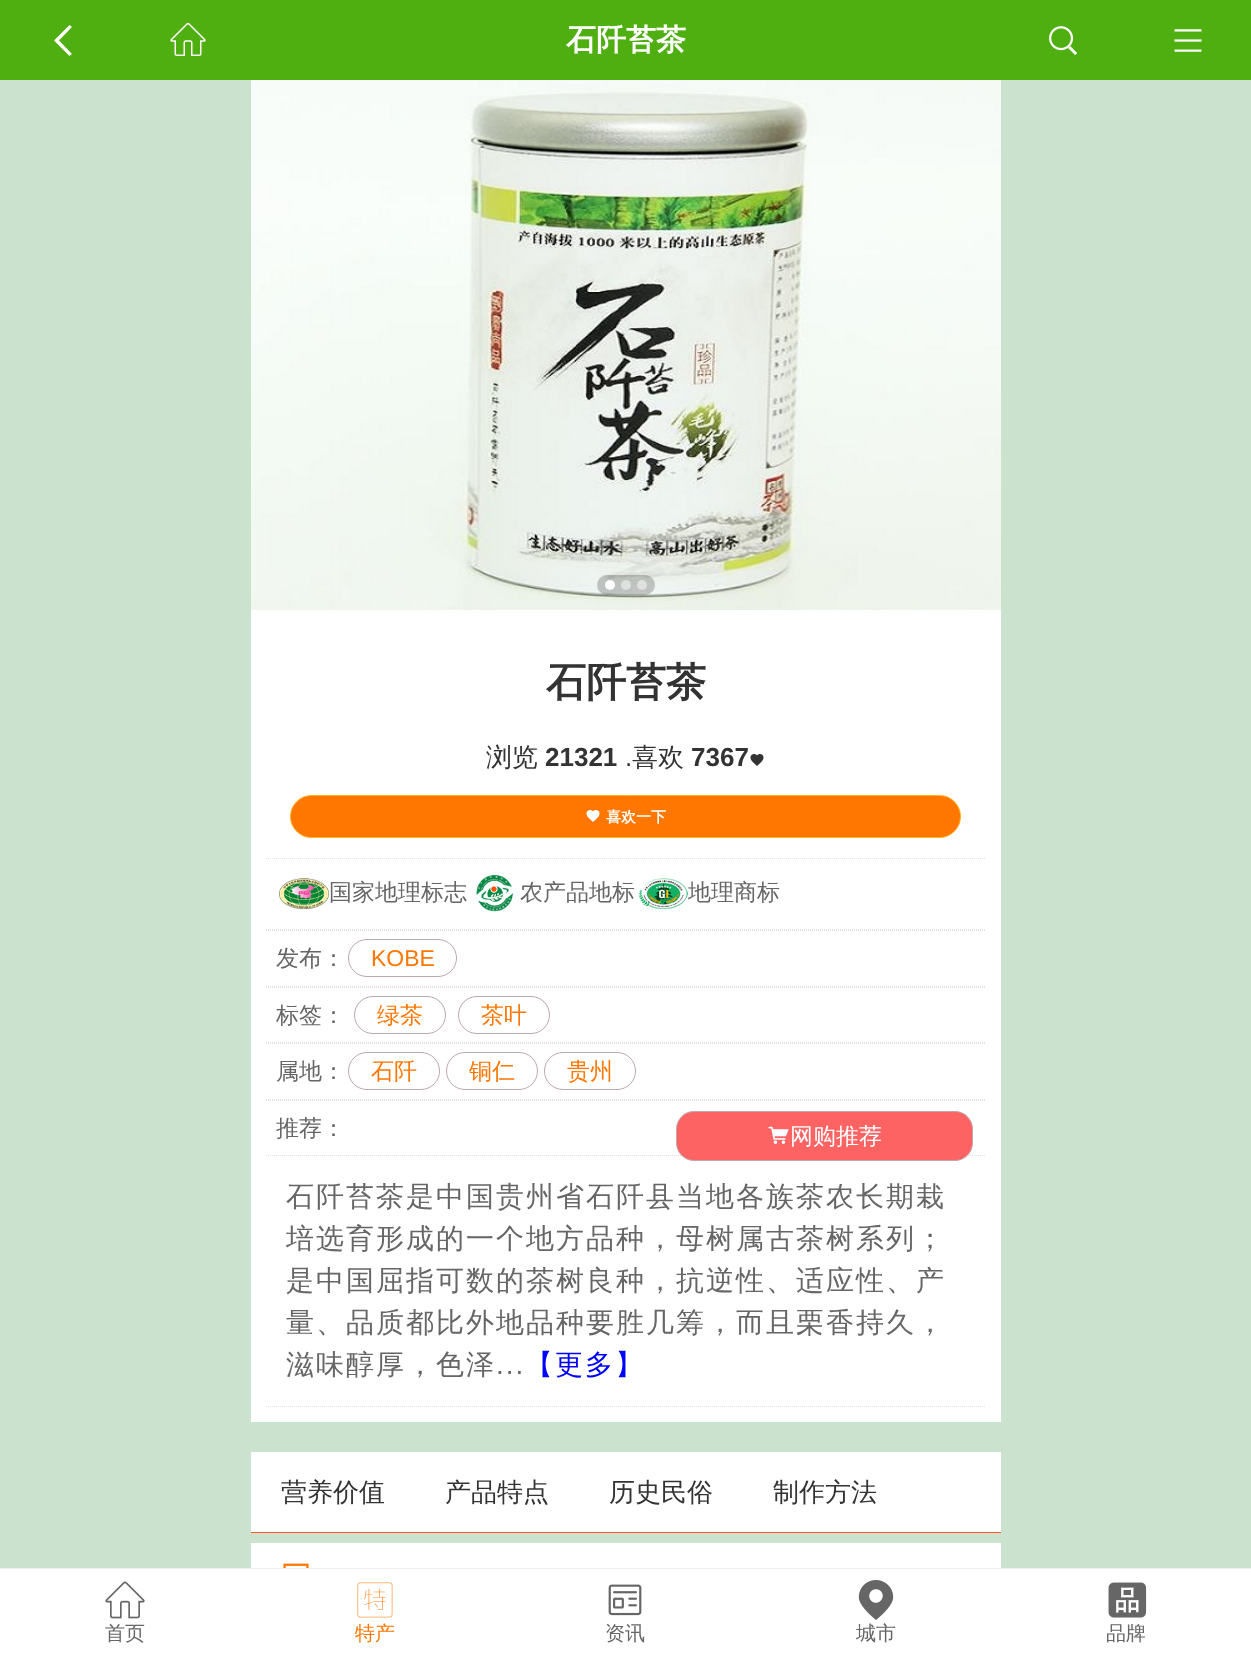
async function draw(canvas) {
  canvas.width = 1251;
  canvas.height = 1657;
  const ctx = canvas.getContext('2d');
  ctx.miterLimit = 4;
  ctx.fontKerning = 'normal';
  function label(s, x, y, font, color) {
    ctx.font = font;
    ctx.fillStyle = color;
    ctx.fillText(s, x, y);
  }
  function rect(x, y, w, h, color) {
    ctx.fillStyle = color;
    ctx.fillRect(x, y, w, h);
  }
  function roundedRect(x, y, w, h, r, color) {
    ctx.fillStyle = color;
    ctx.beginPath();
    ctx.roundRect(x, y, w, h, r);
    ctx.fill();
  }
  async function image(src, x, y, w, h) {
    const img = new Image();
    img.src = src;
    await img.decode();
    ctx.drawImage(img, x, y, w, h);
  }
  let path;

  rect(0, 0, 1251, 1657, '#cbe2cf');
  rect(0, 0, 1251, 80, '#50af10');
  ctx.fillStyle = '#fff';
  path = new Path2D('M72 27L69.5 25L54 40.5L69.5 56L72 54L59 40.5Z');
  ctx.fill(path);
  await image('assets/img1.png', 170, 22, 36, 34);
  label('石阡苔茶', 566, 50, 'bold 30px WenQuanYi Zen Hei', '#fff');
  await image('assets/img2.png', 1049, 26, 28, 29);
  await image('assets/img3.png', 1174, 29, 28, 23);
  await image('assets/img4.png', 251, 80, 750, 530);
  roundedRect(597, 575, 58, 20, 10, '#00000033');
  ctx.fillStyle = '#fff';
  ctx.beginPath();
  ctx.arc(610, 585, 5, 0, 2 * Math.PI);
  ctx.fill();
  ctx.fillStyle = '#ffffff80';
  ctx.beginPath();
  ctx.arc(626, 585, 5, 0, 2 * Math.PI);
  ctx.fill();
  ctx.beginPath();
  ctx.arc(642, 585, 5, 0, 2 * Math.PI);
  ctx.fill();
  rect(251, 610, 750, 812, '#fff');
  label('石阡苔茶', 546, 696, 'bold 40px WenQuanYi Zen Hei', '#333');
  label('浏览', 486, 766, '500 26px WenQuanYi Zen Hei', '#333');
  label('21321', 545, 766, 'bold 26px Liberation Sans', '#333');
  label('.', 625, 766, '26px Liberation Sans', '#333');
  label('喜欢', 632, 766, '500 26px WenQuanYi Zen Hei', '#333');
  label('7367', 691, 766, 'bold 26px Liberation Sans', '#333');
  await image('assets/img5.png', 750, 754, 14, 12);
  ctx.fillStyle = '#ff7600';
  ctx.beginPath();
  ctx.roundRect(290.5, 795.5, 670, 42, 21);
  ctx.fill();
  ctx.strokeStyle = '#ffb31a';
  ctx.stroke();
  await image('assets/img6.png', 586, 810, 14, 12);
  label('喜欢一下', 606, 822, 'bold 15px WenQuanYi Zen Hei', '#fff');
  path = new Path2D('M266 858.5H986');
  ctx.strokeStyle = '#e1e1e1';
  ctx.setLineDash([1, 1]);
  ctx.stroke(path);
  path = new Path2D('M266 929.5H986');
  ctx.stroke(path);
  await image('assets/img7.png', 279, 878, 50, 32);
  label('国家地理标志', 329, 900, '500 23px WenQuanYi Zen Hei', '#666');
  await image('assets/img8.png', 476, 874, 38, 38);
  label('农产品地标', 520, 900, '500 23px WenQuanYi Zen Hei', '#666');
  await image('assets/img9.png', 638, 878, 50, 32);
  label('地理商标', 688, 900, '500 23px WenQuanYi Zen Hei', '#666');
  path = new Path2D('M266 930.5H986');
  ctx.stroke(path);
  path = new Path2D('M266 986.5H986');
  ctx.stroke(path);
  label('发布：', 276, 966, '500 23px WenQuanYi Zen Hei', '#666');
  ctx.beginPath();
  ctx.roundRect(348.5, 939.5, 108, 37, 18.5);
  ctx.strokeStyle = '#bca9a9';
  ctx.setLineDash([]);
  ctx.stroke();
  label('KOBE', 371, 966, '23px Liberation Sans', '#ff7600');
  path = new Path2D('M266 987.5H986');
  ctx.strokeStyle = '#e1e1e1';
  ctx.setLineDash([1, 1]);
  ctx.stroke(path);
  path = new Path2D('M266 1042.5H986');
  ctx.stroke(path);
  label('标签：', 276, 1023, '500 23px WenQuanYi Zen Hei', '#666');
  ctx.beginPath();
  ctx.roundRect(354.5, 996.5, 91, 37, 18.5);
  ctx.strokeStyle = '#bca9a9';
  ctx.setLineDash([]);
  ctx.stroke();
  label('绿茶', 377, 1023, '500 23px WenQuanYi Zen Hei', '#ff7600');
  ctx.beginPath();
  ctx.roundRect(458.5, 996.5, 91, 37, 18.5);
  ctx.stroke();
  label('茶叶', 481, 1023, '500 23px WenQuanYi Zen Hei', '#ff7600');
  path = new Path2D('M266 1043.5H986');
  ctx.strokeStyle = '#e1e1e1';
  ctx.setLineDash([1, 1]);
  ctx.stroke(path);
  path = new Path2D('M266 1099.5H986');
  ctx.stroke(path);
  label('属地：', 276, 1079, '500 23px WenQuanYi Zen Hei', '#666');
  ctx.beginPath();
  ctx.roundRect(348.5, 1052.5, 91, 37, 18.5);
  ctx.strokeStyle = '#bca9a9';
  ctx.setLineDash([]);
  ctx.stroke();
  label('石阡', 371, 1079, '500 23px WenQuanYi Zen Hei', '#ff7600');
  ctx.beginPath();
  ctx.roundRect(446.5, 1052.5, 91, 37, 18.5);
  ctx.stroke();
  label('铜仁', 469, 1079, '500 23px WenQuanYi Zen Hei', '#ff7600');
  ctx.beginPath();
  ctx.roundRect(544.5, 1052.5, 91, 37, 18.5);
  ctx.stroke();
  label('贵州', 567, 1079, '500 23px WenQuanYi Zen Hei', '#ff7600');
  path = new Path2D('M266 1100.5H986');
  ctx.strokeStyle = '#e1e1e1';
  ctx.setLineDash([1, 1]);
  ctx.stroke(path);
  path = new Path2D('M266 1155.5H986');
  ctx.stroke(path);
  label('推荐：', 276, 1136, '500 23px WenQuanYi Zen Hei', '#666');
  ctx.fillStyle = '#fd6363';
  ctx.beginPath();
  ctx.roundRect(676.5, 1111.5, 296, 49, 17.5);
  ctx.fill();
  ctx.strokeStyle = '#bca9a9';
  ctx.setLineDash([]);
  ctx.stroke();
  await image('assets/img10.png', 768, 1126, 21, 18);
  label('网购推荐', 790, 1144, '500 23px WenQuanYi Zen Hei', '#fff');
  path = new Path2D('M266 1406.5H986');
  ctx.strokeStyle = '#e1e1e1';
  ctx.setLineDash([1, 1]);
  ctx.stroke(path);
  ctx.letterSpacing = '2px';
  label('石阡苔茶是中国贵州省石阡县当地各族茶农长期栽', 286, 1206, '500 28px WenQuanYi Zen Hei', '#666');
  label('培选育形成的一个地方品种，母树属古茶树系列；', 286, 1248, '500 28px WenQuanYi Zen Hei', '#666');
  label('是中国屈指可数的茶树良种，抗逆性、适应性、产', 286, 1290, '500 28px WenQuanYi Zen Hei', '#666');
  label('量、品质都比外地品种要胜几筹，而且栗香持久，', 286, 1332, '500 28px WenQuanYi Zen Hei', '#666');
  label('滋味醇厚，色泽', 286, 1374, '500 28px WenQuanYi Zen Hei', '#666');
  label('...', 496, 1374, '28px Liberation Sans', '#666');
  label('【更多】', 525, 1374, '500 28px WenQuanYi Zen Hei', '#00f');
  rect(251, 1452, 750, 80, '#fff');
  rect(251, 1532, 750, 1, '#f85e23');
  ctx.letterSpacing = '0px';
  label('营养价值', 281, 1501, '500 26px WenQuanYi Zen Hei', '#333');
  label('产品特点', 445, 1501, '500 26px WenQuanYi Zen Hei', '#333');
  label('历史民俗', 609, 1501, '500 26px WenQuanYi Zen Hei', '#333');
  label('制作方法', 773, 1501, '500 26px WenQuanYi Zen Hei', '#333');
  rect(251, 1543, 750, 25, '#fff');
  await image('assets/img11.png', 283, 1563, 26, 5);
  rect(0, 1569, 1251, 88, '#fff');
  rect(0, 1568, 1251, 1, '#eee');
  await image('assets/img12.png', 105, 1581, 40, 38);
  label('首页', 105, 1640, '500 20px WenQuanYi Zen Hei', '#666');
  await image('assets/img13.png', 357, 1582, 36, 36);
  label('特产', 355, 1640, '500 20px WenQuanYi Zen Hei', '#ff7600');
  await image('assets/img14.png', 608, 1584, 34, 32);
  label('资讯', 605, 1640, '500 20px WenQuanYi Zen Hei', '#666');
  await image('assets/img15.png', 858, 1580, 36, 40);
  label('城市', 856, 1640, '500 20px WenQuanYi Zen Hei', '#666');
  await image('assets/img16.png', 1108, 1582, 39, 36);
  label('品牌', 1106, 1640, '500 20px WenQuanYi Zen Hei', '#666');
}

draw(document.querySelector('canvas'));
